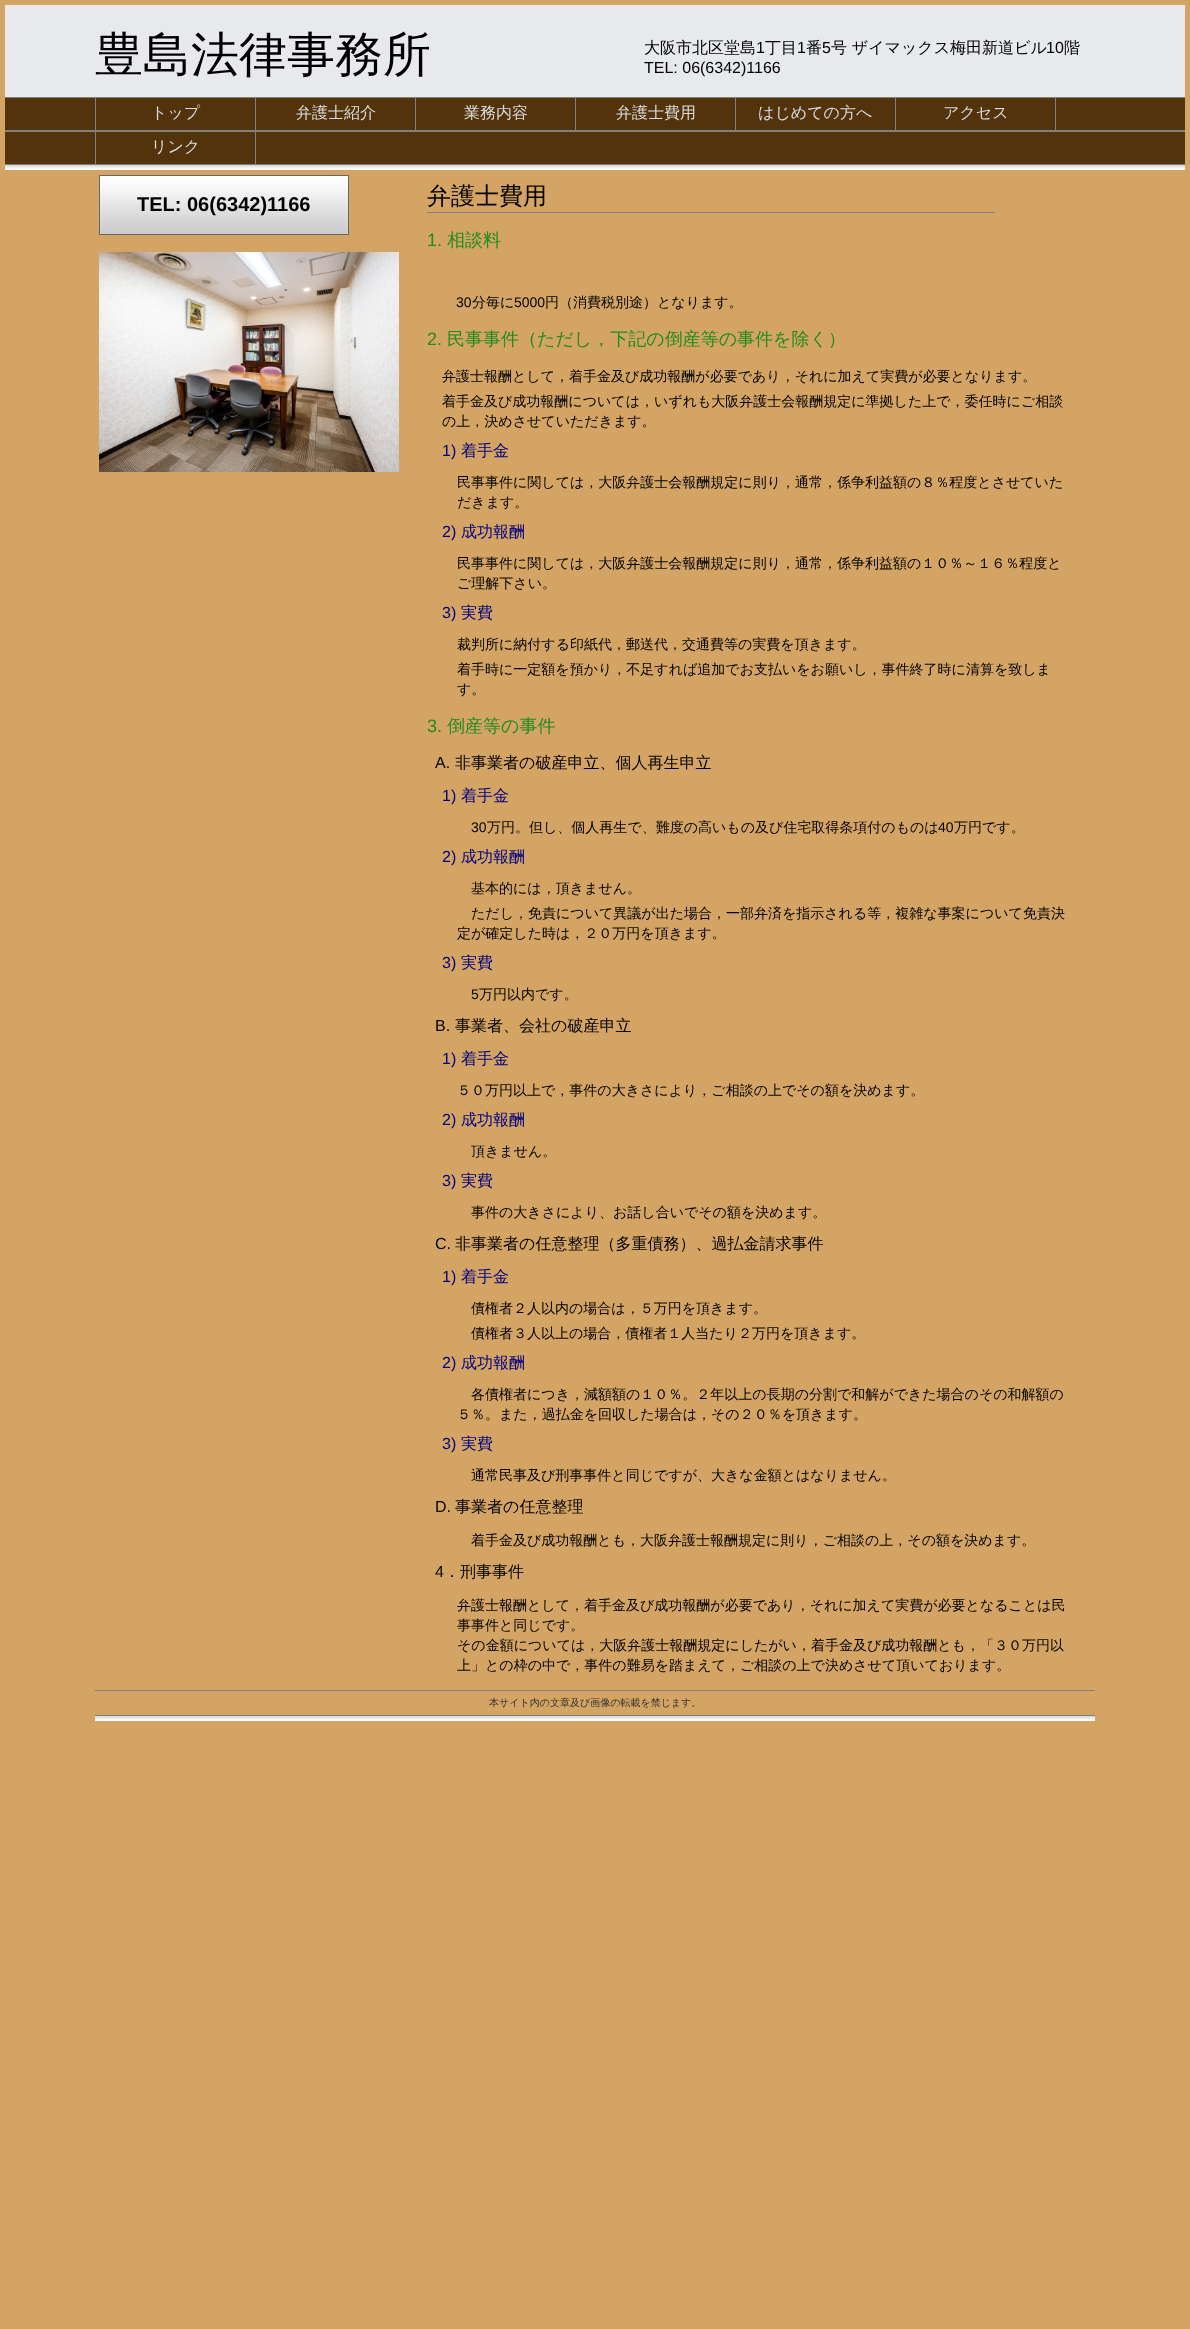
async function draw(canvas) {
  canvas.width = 1190;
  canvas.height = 2329;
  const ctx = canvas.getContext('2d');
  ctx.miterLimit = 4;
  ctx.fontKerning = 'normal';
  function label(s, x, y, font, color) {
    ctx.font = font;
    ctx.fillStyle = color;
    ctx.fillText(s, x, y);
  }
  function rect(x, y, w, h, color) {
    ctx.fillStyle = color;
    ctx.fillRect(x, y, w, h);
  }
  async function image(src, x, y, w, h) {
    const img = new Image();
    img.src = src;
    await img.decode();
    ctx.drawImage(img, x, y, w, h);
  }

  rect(0, 0, 1190, 2329, '#d4a464');
  rect(5, 5, 1180, 92, '#e7e9ec');
  await image('assets/img1.png', 5, 165, 1180, 5);
  label('豊島法律事務所', 95, 71, '500 48px WenQuanYi Zen Hei', '#000');
  label('大阪市北区堂島', 644, 53, '500 16px WenQuanYi Zen Hei', '#000');
  label('1', 756, 53, '16px Liberation Sans', '#000');
  label('丁目', 765, 53, '500 16px WenQuanYi Zen Hei', '#000');
  label('1', 797, 53, '16px Liberation Sans', '#000');
  label('番', 806, 53, '500 16px WenQuanYi Zen Hei', '#000');
  label('5', 822, 53, '16px Liberation Sans', '#000');
  label('号 ザイマックス梅田新道ビル', 831, 53, '500 16px WenQuanYi Zen Hei', '#000');
  label('10', 1046, 53, '16px Liberation Sans', '#000');
  label('階', 1064, 53, '500 16px WenQuanYi Zen Hei', '#000');
  label('TEL: 06(6342)1166', 644, 73, '16px Liberation Sans', '#000');
  rect(5, 98, 1180, 32, '#52330b');
  rect(5, 97, 1180, 1, '#808080');
  rect(5, 130, 1180, 2, '#808080');
  rect(95, 98, 1, 32, '#808080');
  rect(255, 98, 1, 32, '#808080');
  label('トップ', 151, 118, '500 16px WenQuanYi Zen Hei', '#dcdcdc');
  rect(415, 98, 1, 32, '#808080');
  label('弁護士紹介', 296, 118, '500 16px WenQuanYi Zen Hei', '#dcdcdc');
  rect(575, 98, 1, 32, '#808080');
  label('業務内容', 464, 118, '500 16px WenQuanYi Zen Hei', '#dcdcdc');
  rect(735, 98, 1, 32, '#808080');
  label('弁護士費用', 616, 118, '500 16px WenQuanYi Zen Hei', '#dcdcdc');
  rect(895, 98, 1, 32, '#808080');
  label('はじめての方へ', 758, 118, '500 16px WenQuanYi Zen Hei', '#dcdcdc');
  rect(1055, 98, 1, 32, '#808080');
  label('アクセス', 943, 118, '500 16px WenQuanYi Zen Hei', '#dcdcdc');
  rect(5, 132, 1180, 32, '#52330b');
  rect(5, 164, 1180, 1, '#808080');
  rect(95, 132, 1, 32, '#808080');
  rect(255, 132, 1, 32, '#808080');
  label('リンク', 151, 152, '500 16px WenQuanYi Zen Hei', '#dcdcdc');
  await image('assets/img2.png', 99, 175, 250, 60);
  label('TEL: 06(6342)1166', 137, 211, 'bold 20px Liberation Sans', '#000');
  await image('assets/img3.png', 99, 252, 300, 220);
  rect(427, 212, 568, 1, '#808080');
  label('弁護士費用', 427, 204, '500 24px WenQuanYi Zen Hei', '#000');
  label('1.', 427, 246, '18px Liberation Sans', '#228b22');
  label('相談料', 447, 246, '500 18px WenQuanYi Zen Hei', '#228b22');
  label('30', 456, 307, '14px Liberation Sans', '#000');
  label('分毎に', 472, 307, '500 14px WenQuanYi Zen Hei', '#000');
  label('5000', 514, 307, '14px Liberation Sans', '#000');
  label('円（消費税別途）となります。', 545, 307, '500 14px WenQuanYi Zen Hei', '#000');
  label('2.', 427, 345, '18px Liberation Sans', '#228b22');
  label('民事事件（ただし，下記の倒産等の事件を除く）', 447, 345, '500 18px WenQuanYi Zen Hei', '#228b22');
  label('弁護士報酬として，着手金及び成功報酬が必要であり，それに加えて実費が必要となります。', 442, 381, '500 14px WenQuanYi Zen Hei', '#000');
  label('着手金及び成功報酬については，いずれも大阪弁護士会報酬規定に準拠した上で，委任時にご相談', 442, 406, '500 14px WenQuanYi Zen Hei', '#000');
  label('の上，決めさせていただきます。', 442, 426, '500 14px WenQuanYi Zen Hei', '#000');
  label('1)', 442, 456, '16px Liberation Sans', '#000080');
  label('着手金', 461, 456, '500 16px WenQuanYi Zen Hei', '#000080');
  label('民事事件に関しては，大阪弁護士会報酬規定に則り，通常，係争利益額の８％程度とさせていた', 457, 487, '500 14px WenQuanYi Zen Hei', '#000');
  label('だきます。', 457, 507, '500 14px WenQuanYi Zen Hei', '#000');
  label('2)', 442, 537, '16px Liberation Sans', '#000080');
  label('成功報酬', 461, 537, '500 16px WenQuanYi Zen Hei', '#000080');
  label('民事事件に関しては，大阪弁護士会報酬規定に則り，通常，係争利益額の１０％～１６％程度と', 457, 568, '500 14px WenQuanYi Zen Hei', '#000');
  label('ご理解下さい。', 457, 588, '500 14px WenQuanYi Zen Hei', '#000');
  label('3)', 442, 618, '16px Liberation Sans', '#000080');
  label('実費', 461, 618, '500 16px WenQuanYi Zen Hei', '#000080');
  label('裁判所に納付する印紙代，郵送代，交通費等の実費を頂きます。', 457, 649, '500 14px WenQuanYi Zen Hei', '#000');
  label('着手時に一定額を預かり，不足すれば追加でお支払いをお願いし，事件終了時に清算を致しま', 457, 674, '500 14px WenQuanYi Zen Hei', '#000');
  label('す。', 457, 694, '500 14px WenQuanYi Zen Hei', '#000');
  label('3.', 427, 732, '18px Liberation Sans', '#228b22');
  label('倒産等の事件', 447, 732, '500 18px WenQuanYi Zen Hei', '#228b22');
  label('A.', 435, 768, '16px Liberation Sans', '#000');
  label('非事業者の破産申立、個人再生申立', 455, 768, '500 16px WenQuanYi Zen Hei', '#000');
  label('1)', 442, 801, '16px Liberation Sans', '#000080');
  label('着手金', 461, 801, '500 16px WenQuanYi Zen Hei', '#000080');
  label('30', 471, 832, '14px Liberation Sans', '#000');
  label('万円。但し、個人再生で、難度の高いもの及び住宅取得条項付のものは', 487, 832, '500 14px WenQuanYi Zen Hei', '#000');
  label('40', 938, 832, '14px Liberation Sans', '#000');
  label('万円です。', 954, 832, '500 14px WenQuanYi Zen Hei', '#000');
  label('2)', 442, 862, '16px Liberation Sans', '#000080');
  label('成功報酬', 461, 862, '500 16px WenQuanYi Zen Hei', '#000080');
  label('基本的には，頂きません。', 471, 893, '500 14px WenQuanYi Zen Hei', '#000');
  label('ただし，免責について異議が出た場合，一部弁済を指示される等，複雑な事案について免責決', 471, 918, '500 14px WenQuanYi Zen Hei', '#000');
  label('定が確定した時は，２０万円を頂きます。', 457, 938, '500 14px WenQuanYi Zen Hei', '#000');
  label('3)', 442, 968, '16px Liberation Sans', '#000080');
  label('実費', 461, 968, '500 16px WenQuanYi Zen Hei', '#000080');
  label('5', 471, 999, '14px Liberation Sans', '#000');
  label('万円以内です。', 479, 999, '500 14px WenQuanYi Zen Hei', '#000');
  label('B.', 435, 1031, '16px Liberation Sans', '#000');
  label('事業者、会社の破産申立', 455, 1031, '500 16px WenQuanYi Zen Hei', '#000');
  label('1)', 442, 1064, '16px Liberation Sans', '#000080');
  label('着手金', 461, 1064, '500 16px WenQuanYi Zen Hei', '#000080');
  label('５０万円以上で，事件の大きさにより，ご相談の上でその額を決めます。', 457, 1095, '500 14px WenQuanYi Zen Hei', '#000');
  label('2)', 442, 1125, '16px Liberation Sans', '#000080');
  label('成功報酬', 461, 1125, '500 16px WenQuanYi Zen Hei', '#000080');
  label('頂きません。', 471, 1156, '500 14px WenQuanYi Zen Hei', '#000');
  label('3)', 442, 1186, '16px Liberation Sans', '#000080');
  label('実費', 461, 1186, '500 16px WenQuanYi Zen Hei', '#000080');
  label('事件の大きさにより、お話し合いでその額を決めます。', 471, 1217, '500 14px WenQuanYi Zen Hei', '#000');
  label('C.', 435, 1249, '16px Liberation Sans', '#000');
  label('非事業者の任意整理（多重債務）、過払金請求事件', 455, 1249, '500 16px WenQuanYi Zen Hei', '#000');
  label('1)', 442, 1282, '16px Liberation Sans', '#000080');
  label('着手金', 461, 1282, '500 16px WenQuanYi Zen Hei', '#000080');
  label('債権者２人以内の場合は，５万円を頂きます。', 471, 1313, '500 14px WenQuanYi Zen Hei', '#000');
  label('債権者３人以上の場合，債権者１人当たり２万円を頂きます。', 471, 1338, '500 14px WenQuanYi Zen Hei', '#000');
  label('2)', 442, 1368, '16px Liberation Sans', '#000080');
  label('成功報酬', 461, 1368, '500 16px WenQuanYi Zen Hei', '#000080');
  label('各債権者につき，減額額の１０％。２年以上の長期の分割で和解ができた場合のその和解額の', 471, 1399, '500 14px WenQuanYi Zen Hei', '#000');
  label('５％。また，過払金を回収した場合は，その２０％を頂きます。', 457, 1419, '500 14px WenQuanYi Zen Hei', '#000');
  label('3)', 442, 1449, '16px Liberation Sans', '#000080');
  label('実費', 461, 1449, '500 16px WenQuanYi Zen Hei', '#000080');
  label('通常民事及び刑事事件と同じですが、大きな金額とはなりません。', 471, 1480, '500 14px WenQuanYi Zen Hei', '#000');
  label('D.', 435, 1512, '16px Liberation Sans', '#000');
  label('事業者の任意整理', 455, 1512, '500 16px WenQuanYi Zen Hei', '#000');
  label('着手金及び成功報酬とも，大阪弁護士報酬規定に則り，ご相談の上，その額を決めます。', 471, 1545, '500 14px WenQuanYi Zen Hei', '#000');
  label('4', 435, 1577, '16px Liberation Sans', '#000');
  label('．刑事事件', 444, 1577, '500 16px WenQuanYi Zen Hei', '#000');
  label('弁護士報酬として，着手金及び成功報酬が必要であり，それに加えて実費が必要となることは民', 457, 1610, '500 14px WenQuanYi Zen Hei', '#000');
  label('事事件と同じです。', 457, 1630, '500 14px WenQuanYi Zen Hei', '#000');
  label('その金額については，大阪弁護士報酬規定にしたがい，着手金及び成功報酬とも，「３０万円以', 457, 1650, '500 14px WenQuanYi Zen Hei', '#000');
  label('上」との枠の中で，事件の難易を踏まえて，ご相談の上で決めさせて頂いております。', 457, 1670, '500 14px WenQuanYi Zen Hei', '#000');
  await image('assets/img4.png', 95, 1716, 1000, 5);
  rect(95, 1690, 1000, 1, '#808080');
  rect(95, 1715, 1000, 1, '#808080');
  label('本サイト内の文章及び画像の転載を禁じます。', 489, 1706, '500 10px WenQuanYi Zen Hei', '#333');
}

draw(document.querySelector('canvas'));
